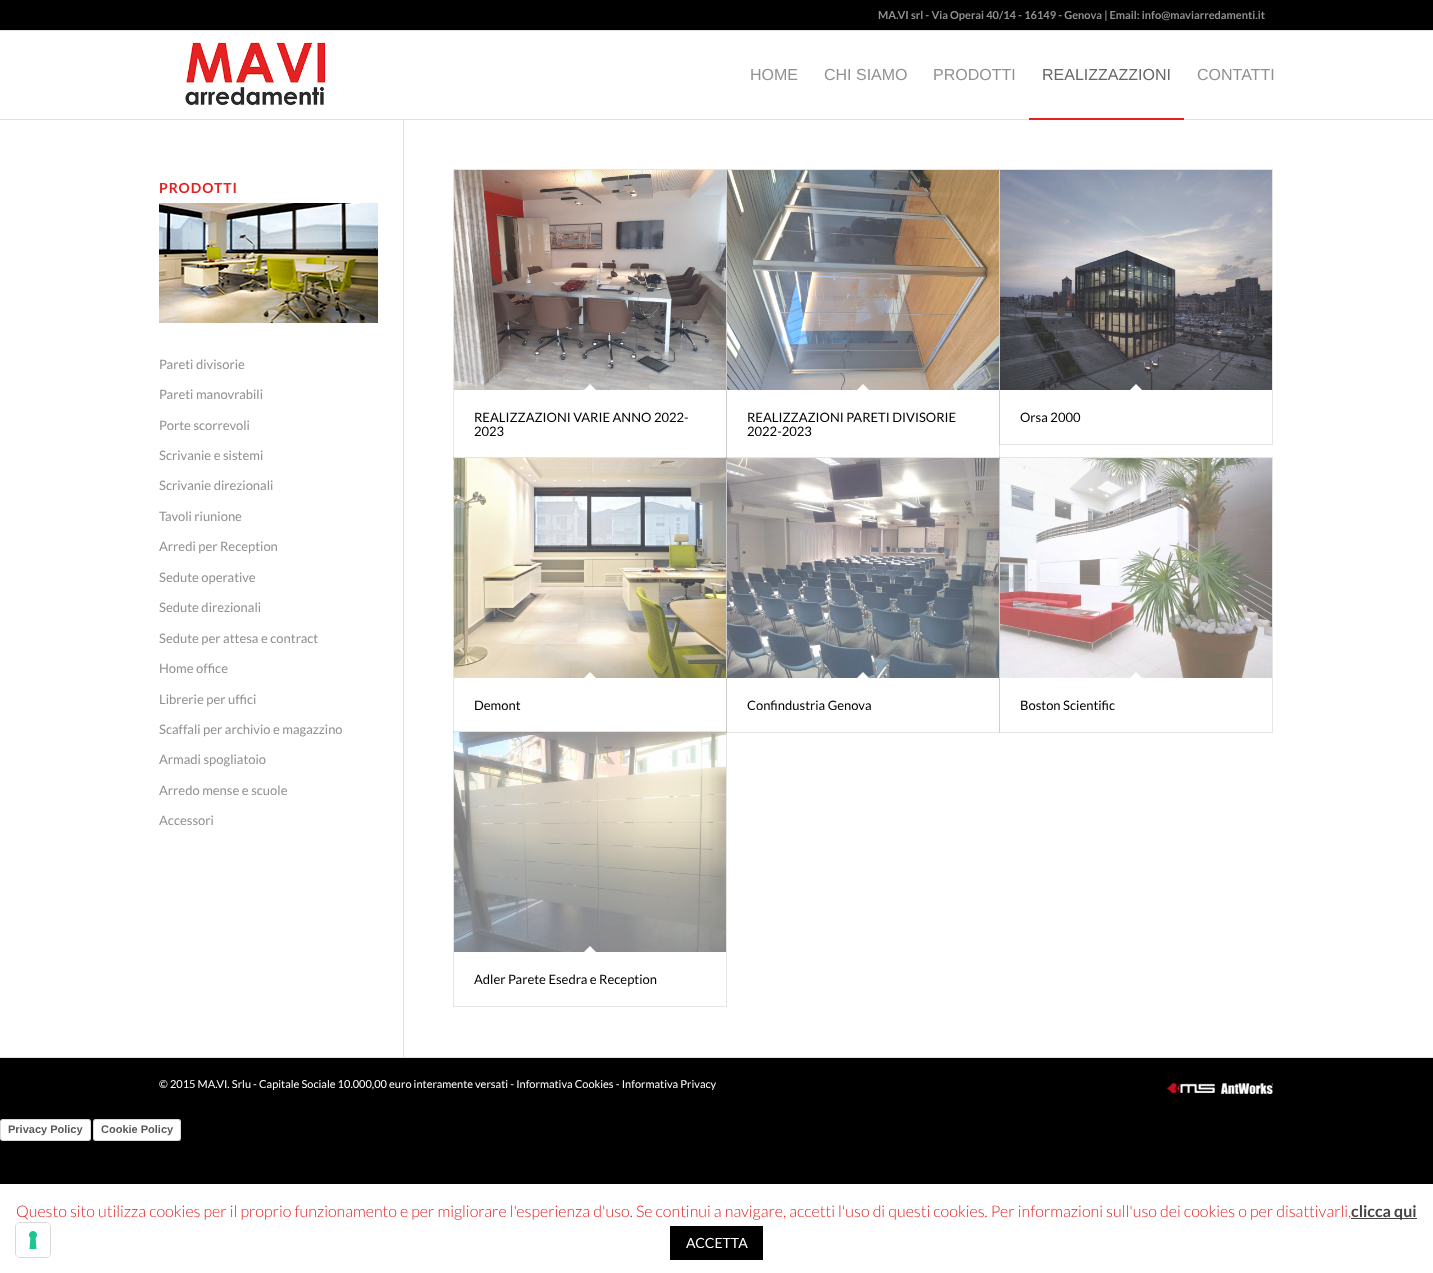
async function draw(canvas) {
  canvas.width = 1433;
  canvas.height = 1273;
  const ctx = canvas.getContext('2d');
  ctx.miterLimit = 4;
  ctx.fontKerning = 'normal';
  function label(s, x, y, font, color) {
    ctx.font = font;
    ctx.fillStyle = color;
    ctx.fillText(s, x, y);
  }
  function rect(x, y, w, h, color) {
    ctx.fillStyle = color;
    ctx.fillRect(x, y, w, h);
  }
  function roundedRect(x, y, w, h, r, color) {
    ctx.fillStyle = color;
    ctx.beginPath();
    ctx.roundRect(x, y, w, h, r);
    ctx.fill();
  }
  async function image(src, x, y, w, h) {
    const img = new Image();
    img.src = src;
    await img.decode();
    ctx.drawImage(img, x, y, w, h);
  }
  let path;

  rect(0, 0, 1433, 1273, '#000');
  rect(0, 30, 1433, 1, '#e1e1e1');
  label('MA.VI srl - Via Operai 40/14 - 16149 - Genova | Email: info@maviarredamenti.it', 878, 19, 'bold 11px Lato', '#919191');
  rect(0, 31, 1433, 88, '#fff');
  rect(0, 119, 1433, 1, '#e1e1e1');
  await image('assets/img1.png', 185, 42, 141, 64);
  label('HOME', 750, 80, '16px Arimo', '#919191');
  label('CHI SIAMO', 824, 80, '16px Arimo', '#919191');
  label('PRODOTTI', 933, 80, '16px Arimo', '#919191');
  label('REALIZZAZZIONI', 1042, 80, '16px Arimo', '#666');
  rect(1029, 118, 155, 2, '#e42222');
  label('CONTATTI', 1197, 80, '16px Arimo', '#919191');
  rect(0, 120, 1433, 937, '#fff');
  ctx.letterSpacing = '1px';
  label('PRODOTTI', 159, 193, 'bold 14px Lato', '#e42222');
  await image('assets/img2.png', 159, 203, 219, 120);
  ctx.letterSpacing = '0px';
  label('Pareti divisorie', 159, 369, '13px Lato', '#919191');
  label('Pareti manovrabili', 159, 399, '13px Lato', '#919191');
  label('Porte scorrevoli', 159, 430, '13px Lato', '#919191');
  label('Scrivanie e sistemi', 159, 460, '13px Lato', '#919191');
  label('Scrivanie direzionali', 159, 490, '13px Lato', '#919191');
  label('Tavoli riunione', 159, 521, '13px Lato', '#919191');
  label('Arredi per Reception', 159, 551, '13px Lato', '#919191');
  label('Sedute operative', 159, 582, '13px Lato', '#919191');
  label('Sedute direzionali', 159, 612, '13px Lato', '#919191');
  label('Sedute per attesa e contract', 159, 643, '13px Lato', '#919191');
  label('Home office', 159, 673, '13px Lato', '#919191');
  label('Librerie per uffici', 159, 704, '13px Lato', '#919191');
  label('Scaffali per archivio e magazzino', 159, 734, '13px Lato', '#919191');
  label('Armadi spogliatoio', 159, 764, '13px Lato', '#919191');
  label('Arredo mense e scuole', 159, 795, '13px Lato', '#919191');
  label('Accessori', 159, 825, '13px Lato', '#919191');
  rect(403, 120, 1, 937, '#e1e1e1');
  ctx.strokeStyle = '#e6e6e6';
  ctx.strokeRect(453.5, 169.5, 273, 290);
  await image('assets/img3.png', 454, 170, 272, 220);
  ctx.fillStyle = '#fff';
  path = new Path2D('M590 384L597 391L590 398L583 391Z');
  ctx.fill(path);
  label('REALIZZAZIONI VARIE ANNO 2022-', 474, 422, '13px Lato', '#000');
  label('2023', 474, 436, '13px Lato', '#000');
  ctx.strokeStyle = '#0000001a';
  ctx.strokeRect(726.5, 169.5, 273, 290);
  await image('assets/img4.png', 727, 170, 272, 220);
  ctx.fillStyle = '#fff';
  path = new Path2D('M863 384L870 391L863 398L856 391Z');
  ctx.fill(path);
  label('REALIZZAZIONI PARETI DIVISORIE', 747, 422, '13px Lato', '#000');
  label('2022-2023', 747, 436, '13px Lato', '#000');
  ctx.strokeRect(999.5, 169.5, 273, 275);
  await image('assets/img5.png', 1000, 170, 272, 220);
  ctx.fillStyle = '#fff';
  path = new Path2D('M1136 384L1143 391L1136 398L1129 391Z');
  ctx.fill(path);
  label('Orsa 2000', 1020, 422, '13px Lato', '#000');
  ctx.strokeRect(453.5, 457.5, 273, 275);
  rect(454, 459, 272, 1, '#fff');
  await image('assets/img6.png', 454, 458, 272, 220);
  path = new Path2D('M590 672L597 679L590 686L583 679Z');
  ctx.fill(path);
  label('Demont', 474, 710, '13px Lato', '#000');
  ctx.strokeRect(726.5, 457.5, 273, 275);
  rect(727, 459, 272, 1, '#fff');
  await image('assets/img7.png', 727, 458, 272, 220);
  path = new Path2D('M863 672L870 679L863 686L856 679Z');
  ctx.fill(path);
  label('Confindustria Genova', 747, 710, '13px Lato', '#000');
  ctx.strokeRect(999.5, 457.5, 273, 275);
  await image('assets/img8.png', 1000, 458, 272, 220);
  ctx.fillStyle = '#fff';
  path = new Path2D('M1136 672L1143 679L1136 686L1129 679Z');
  ctx.fill(path);
  label('Boston Scientific', 1020, 710, '13px Lato', '#000');
  ctx.strokeRect(453.5, 731.5, 273, 275);
  rect(454, 732, 272, 1, '#fff');
  await image('assets/img9.png', 454, 732, 272, 220);
  path = new Path2D('M590 946L597 953L590 960L583 953Z');
  ctx.fill(path);
  label('Adler Parete Esedra e Reception', 474, 984, '13px Lato', '#000');
  rect(0, 1057, 1433, 1, '#e1e1e1');
  label('© 2015 MA.VI. Srlu - Capitale Sociale 10.000,00 euro interamente versati - Informativa Cookies - Informativa Privacy', 159, 1088, '11px Lato', '#fff');
  await image('assets/img10.png', 1166, 1083, 49, 10);
  await image('assets/img11.png', 1221, 1083, 52, 11);
  roundedRect(0, 1119, 91, 22, 3, '#fff');
  ctx.beginPath();
  ctx.roundRect(0.5, 1119.5, 90, 21, 2.5);
  ctx.strokeStyle = '#00000026';
  ctx.stroke();
  label('Privacy Policy', 8, 1133, 'bold 11px Liberation Sans', '#595959');
  roundedRect(93, 1119, 88, 22, 3, '#fff');
  ctx.beginPath();
  ctx.roundRect(93.5, 1119.5, 87, 21, 2.5);
  ctx.stroke();
  label('Cookie Policy', 101, 1133, 'bold 11px Liberation Sans', '#595959');
  rect(0, 1184, 1433, 89, '#fff');
  label('Questo sito utilizza cookies per il proprio funzionamento e per migliorare l\'esperienza d\'uso. Se continui a navigare, accetti l\'uso di questi cookies. Per informazioni sull\'uso dei cookies o per disattivarli,', 16, 1217, '300 16px Lato', '#e42222');
  rect(1351, 1218, 66, 1, '#444');
  label('clicca qui', 1351, 1217, 'bold 16px Lato', '#444');
  rect(670, 1226, 93, 34, '#000');
  label('ACCETTA', 686, 1248, '14px Lato', '#fff');
  ctx.beginPath();
  ctx.roundRect(15.5, 1222.5, 35, 35, 4.5);
  ctx.strokeStyle = '#d9d9d9';
  ctx.stroke();
  roundedRect(16, 1223, 34, 34, 4, '#fff');
  await image('assets/img12.png', 29, 1231, 8, 18);
}

draw(document.querySelector('canvas'));
